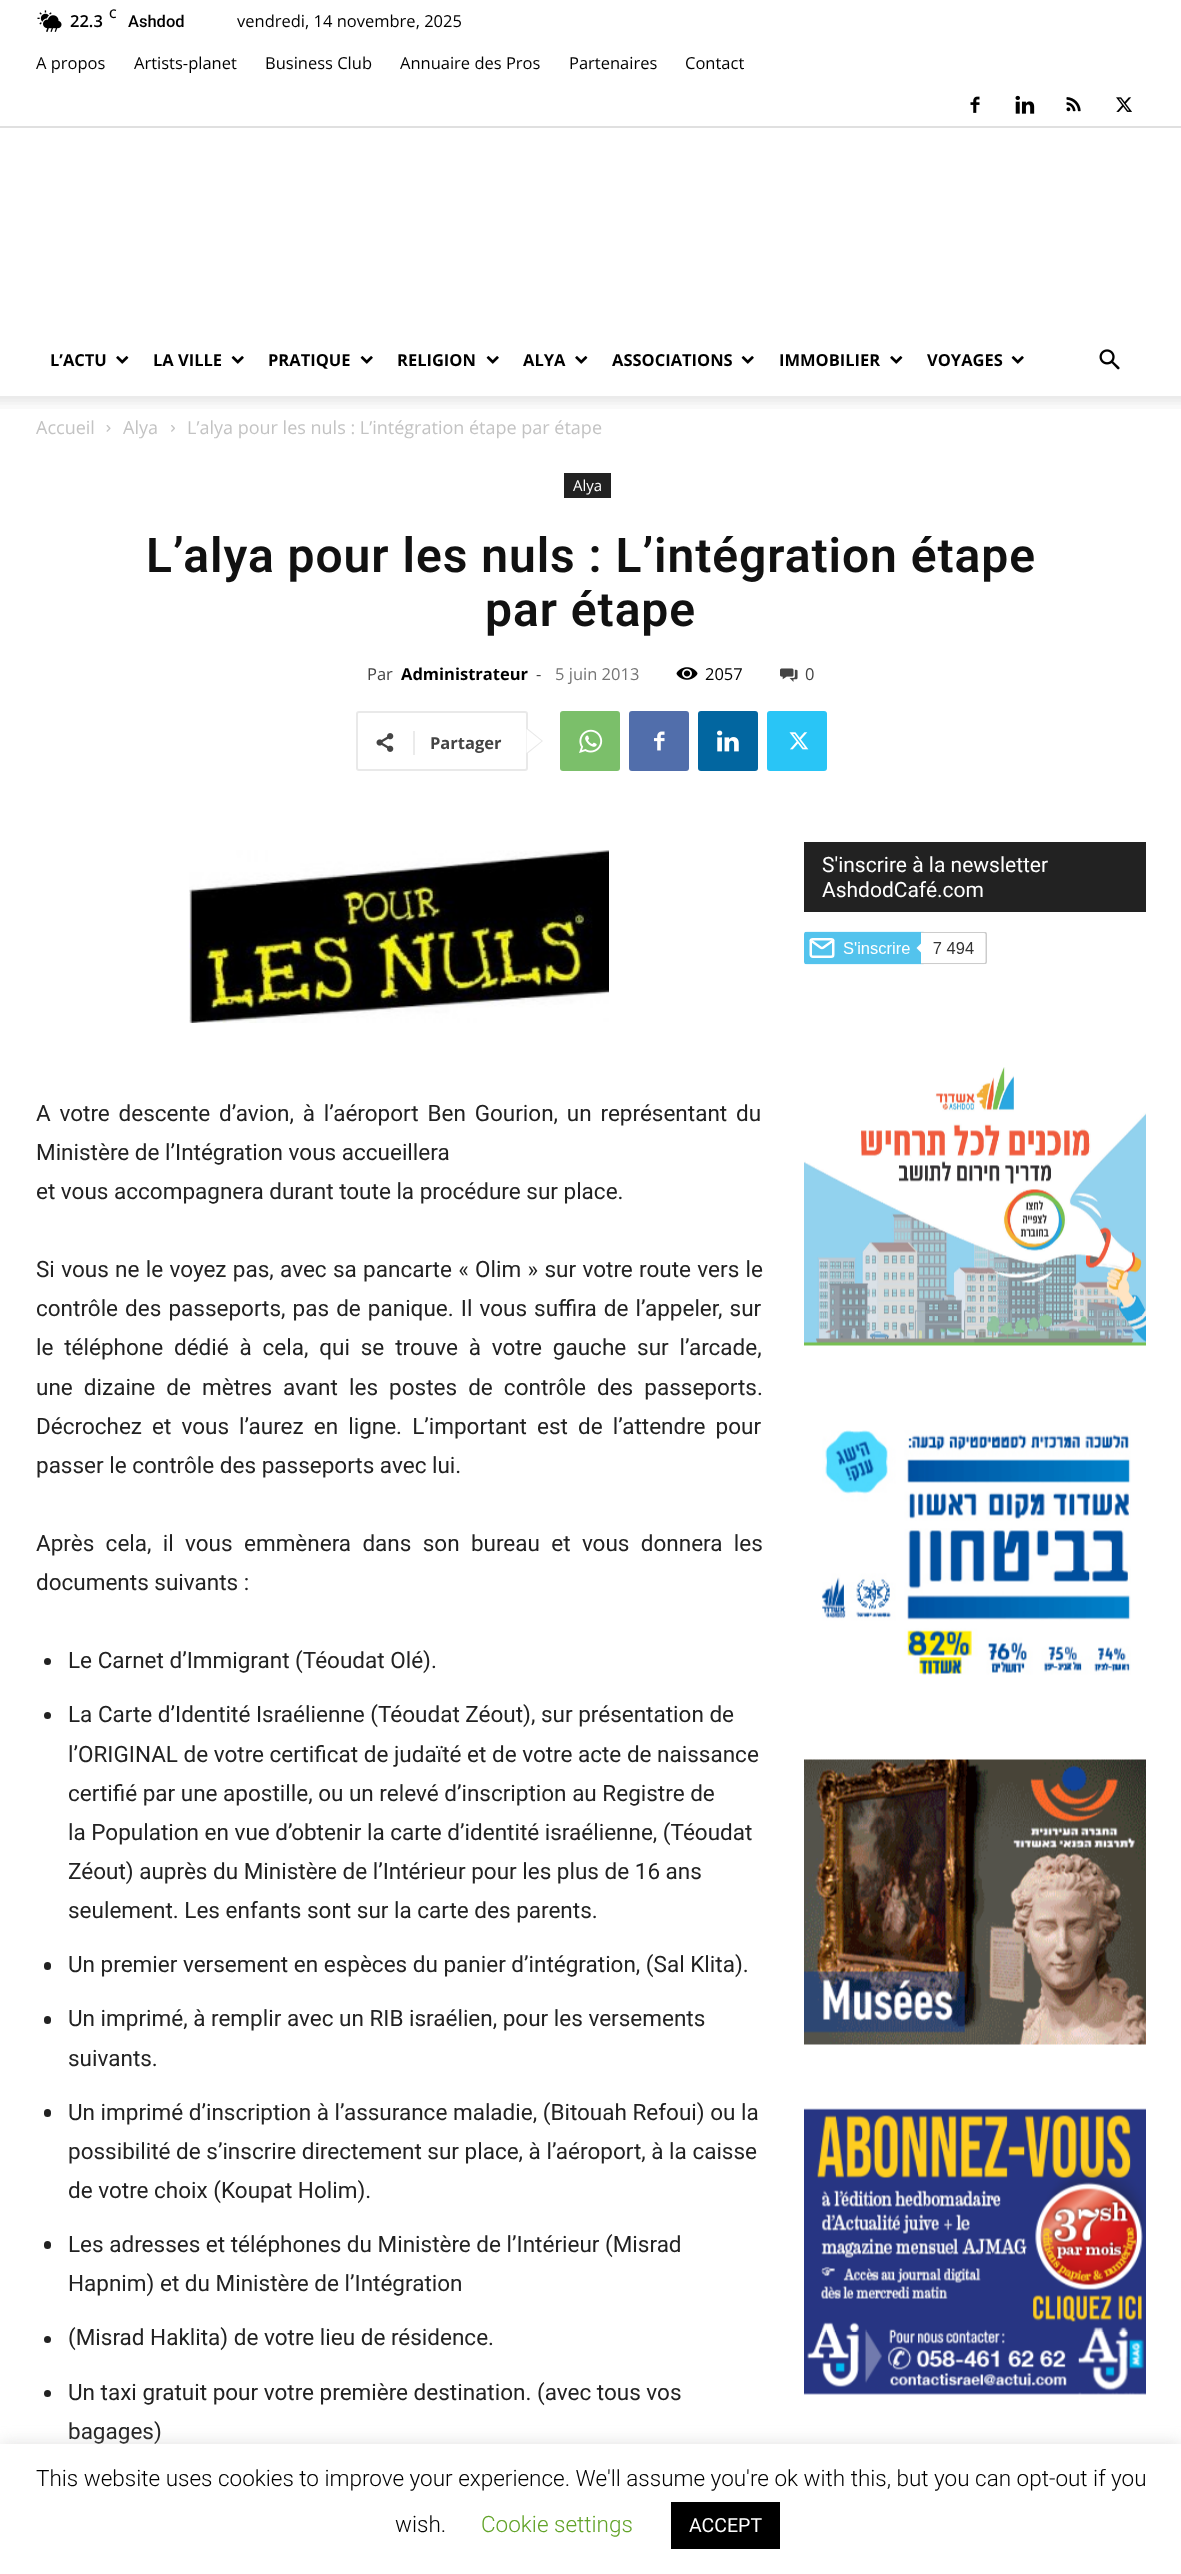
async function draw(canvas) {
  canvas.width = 1181;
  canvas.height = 2574;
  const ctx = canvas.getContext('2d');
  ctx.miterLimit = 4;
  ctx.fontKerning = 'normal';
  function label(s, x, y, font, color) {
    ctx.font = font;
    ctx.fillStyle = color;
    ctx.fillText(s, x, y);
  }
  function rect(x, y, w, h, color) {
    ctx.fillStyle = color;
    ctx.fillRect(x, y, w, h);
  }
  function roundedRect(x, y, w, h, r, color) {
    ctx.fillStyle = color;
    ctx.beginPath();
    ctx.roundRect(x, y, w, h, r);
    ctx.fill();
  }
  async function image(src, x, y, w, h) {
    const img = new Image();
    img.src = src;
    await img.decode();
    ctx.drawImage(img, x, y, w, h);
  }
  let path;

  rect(0, 0, 1181, 2574, '#fff');
  rect(0, 126, 1181, 2, '#e0e0e0');
  await image('assets/img1.png', 37, 10, 25, 22);
  label('C', 109, 18, '600 12px Open Sans', '#000');
  label('22.3', 70, 27, '600 16.5px Open Sans', '#000');
  label('Ashdod', 128, 27, '500 16.5px Roboto', '#000');
  label('vendredi, 14 novembre, 2025', 237, 27, '16.5px Open Sans', '#000');
  label('A propos', 36, 69, '16.5px Open Sans', '#000');
  label('Artists-planet', 134, 69, '16.5px Open Sans', '#000');
  label('Business Club', 265, 69, '16.5px Open Sans', '#000');
  label('Annuaire des Pros', 400, 69, '16.5px Open Sans', '#000');
  label('Partenaires', 569, 69, '16.5px Open Sans', '#000');
  label('Contact', 685, 69, '16.5px Open Sans', '#000');
  await image('assets/img2.png', 970, 96, 10, 17);
  await image('assets/img3.png', 1015, 95, 20, 19);
  await image('assets/img4.png', 1066, 97, 15, 15);
  await image('assets/img5.png', 1116, 97, 16, 15);
  label('L’ACTU', 50, 366, 'bold 16.5px Open Sans', '#000');
  await image('assets/img6.png', 116, 356, 13, 8);
  label('LA VILLE', 153, 366, 'bold 16.5px Open Sans', '#000');
  await image('assets/img7.png', 231, 356, 13, 8);
  label('PRATIQUE', 268, 366, 'bold 16.5px Open Sans', '#000');
  await image('assets/img7.png', 360, 356, 13, 8);
  label('RELIGION', 397, 366, 'bold 16.5px Open Sans', '#000');
  await image('assets/img7.png', 486, 356, 13, 8);
  label('ALYA', 523, 366, 'bold 16.5px Open Sans', '#000');
  await image('assets/img6.png', 575, 356, 13, 8);
  label('ASSOCIATIONS', 612, 366, 'bold 16.5px Open Sans', '#000');
  await image('assets/img7.png', 741, 356, 13, 8);
  label('IMMOBILIER', 779, 366, 'bold 16.5px Open Sans', '#000');
  await image('assets/img6.png', 890, 356, 13, 8);
  label('VOYAGES', 927, 366, 'bold 16.5px Open Sans', '#000');
  await image('assets/img7.png', 1011, 356, 13, 8);
  await image('assets/img8.png', 1099, 349, 21, 21);
  await image('assets/img9.png', 0, 396, 1181, 13);
  label('Accueil', 36, 434, '18px Open Sans', '#c3c3c3');
  await image('assets/img10.png', 106, 425, 5, 7);
  label('Alya', 123, 434, '18px Open Sans', '#c3c3c3');
  await image('assets/img11.png', 171, 425, 4, 7);
  label('L’alya pour les nuls : L’intégration étape par étape', 187, 434, '18px Open Sans', '#c3c3c3');
  rect(564, 473, 47, 25, '#222');
  label('Alya', 573, 491, '15px Open Sans', '#fff');
  ctx.letterSpacing = '0.95px';
  label('L’alya pour les nuls : L’intégration étape', 146, 572, '600 48px Roboto', '#111');
  label('par étape', 485, 626, '600 48px Roboto', '#111');
  ctx.letterSpacing = '0px';
  label('Par', 367, 680, '16.5px Open Sans', '#444');
  label('Administrateur', 401, 680, 'bold 16.5px Open Sans', '#000');
  label('-', 536, 680, '16.5px Open Sans', '#444');
  label('5 juin 2013', 555, 680, '16.5px Open Sans', '#767676');
  await image('assets/img12.png', 676, 667, 22, 13);
  label('2057', 705, 680, '16.5px Open Sans', '#000');
  await image('assets/img13.png', 780, 668, 18, 14);
  label('0', 805, 680, '16.5px Open Sans', '#444');
  ctx.beginPath();
  ctx.roundRect(357, 712, 170, 58, 2);
  ctx.strokeStyle = '#e9e9e9';
  ctx.lineWidth = 2;
  ctx.stroke();
  ctx.fillStyle = '#e9e9e9';
  path = new Path2D('M526.5 754.5V727.5L543 741Z');
  ctx.fill(path);
  await image('assets/img14.png', 376, 733, 18, 19);
  rect(413, 731, 2, 24, '#ebebeb');
  label('Partager', 430, 749, 'bold 16.5px Open Sans', '#444');
  ctx.fillStyle = '#fff';
  path = new Path2D('M526.5 753V729L541.5 741Z');
  ctx.fill(path);
  roundedRect(560, 711, 60, 60, 3, '#7bbf6a');
  await image('assets/img15.png', 579, 729, 24, 24);
  roundedRect(629, 711, 60, 60, 3, '#516eab');
  await image('assets/img16.png', 654, 731, 11, 20);
  roundedRect(698, 711, 60, 60, 3, '#0266a0');
  await image('assets/img17.png', 717, 730, 22, 22);
  roundedRect(767, 711, 60, 60, 3, '#29c5f6');
  await image('assets/img18.png', 789, 732, 20, 18);
  rect(804, 842, 342, 70, '#222');
  label('S\'inscrire à la newsletter', 822, 872, '21px Roboto', '#fff');
  label('AshdodCafé.com', 822, 897, '21px Roboto', '#fff');
  await image('assets/img19.png', 804, 931, 183, 34);
  await image('assets/img20.png', 804, 1067, 342, 279);
  await image('assets/img21.png', 821, 1430, 310, 245);
  await image('assets/img22.png', 804, 1759, 342, 286);
  await image('assets/img23.png', 804, 2108, 342, 287);
  await image('assets/img24.png', 189, 850, 420, 173);
  ctx.wordSpacing = '3.25px';
  label('A votre descente d’avion, à l’aéroport Ben Gourion, un représentant du', 36, 1121, '22.5px Roboto', '#222');
  ctx.wordSpacing = '0px';
  label('Ministère de l’Intégration vous accueillera', 36, 1160, '22.5px Roboto', '#222');
  label('et vous accompagnera durant toute la procédure sur place.', 36, 1199, '22.5px Roboto', '#222');
  ctx.wordSpacing = '0.75px';
  label('Si vous ne le voyez pas, avec sa pancarte « Olim » sur votre route vers le', 36, 1277, '22.5px Roboto', '#222');
  ctx.wordSpacing = '1.5px';
  label('contrôle des passeports, pas de panique. Il vous suffira de l’appeler, sur', 36, 1316, '22.5px Roboto', '#222');
  ctx.wordSpacing = '5.25px';
  label('le téléphone dédié à cela, qui se trouve à votre gauche sur l’arcade,', 36, 1355, '22.5px Roboto', '#222');
  ctx.wordSpacing = '5.5px';
  label('une dizaine de mètres avant les postes de contrôle des passeports.', 36, 1395, '22.5px Roboto', '#222');
  ctx.wordSpacing = '4.5px';
  label('Décrochez et vous l’aurez en ligne. L’important est de l’attendre pour', 36, 1434, '22.5px Roboto', '#222');
  ctx.wordSpacing = '0px';
  label('passer le contrôle des passeports avec lui.', 36, 1473, '22.5px Roboto', '#222');
  ctx.wordSpacing = '5.75px';
  label('Après cela, il vous emmènera dans son bureau et vous donnera les', 36, 1551, '22.5px Roboto', '#222');
  ctx.wordSpacing = '0px';
  label('documents suivants :', 36, 1590, '22.5px Roboto', '#222');
  ctx.beginPath();
  ctx.arc(47.5, 1661.5, 3.5, 0, 2 * Math.PI);
  ctx.fill();
  label('Le Carnet d’Immigrant (Téoudat Olé).', 68, 1668, '22.5px Roboto', '#222');
  ctx.beginPath();
  ctx.arc(47.5, 1715.5, 3.5, 0, 2 * Math.PI);
  ctx.fill();
  label('La Carte d’Identité Israélienne (Téoudat Zéout), sur présentation de', 68, 1722, '22.5px Roboto', '#222');
  label('l’ORIGINAL de votre certificat de judaïté et de votre acte de naissance', 68, 1762, '22.5px Roboto', '#222');
  label('certifié par une apostille, ou un relevé d’inscription au Registre de', 68, 1801, '22.5px Roboto', '#222');
  label('la Population en vue d’obtenir la carte d’identité israélienne, (Téoudat', 68, 1840, '22.5px Roboto', '#222');
  label('Zéout) auprès du Ministère de l’Intérieur pour les plus de 16 ans', 68, 1879, '22.5px Roboto', '#222');
  label('seulement. Les enfants sont sur la carte des parents.', 68, 1918, '22.5px Roboto', '#222');
  roundedRect(44, 1962, 7, 8, 3.5, '#222');
  label('Un premier versement en espèces du panier d’intégration, (Sal Klita).', 68, 1972, '22.5px Roboto', '#222');
  roundedRect(44, 2016, 7, 8, 3.5, '#222');
  label('Un imprimé, à remplir avec un RIB israélien, pour les versements', 68, 2026, '22.5px Roboto', '#222');
  label('suivants.', 68, 2066, '22.5px Roboto', '#222');
  roundedRect(44, 2109, 7, 8, 3.5, '#222');
  label('Un imprimé d’inscription à l’assurance maladie, (Bitouah Refoui) ou la', 68, 2120, '22.5px Roboto', '#222');
  label('possibilité de s’inscrire directement sur place, à l’aéroport, à la caisse', 68, 2159, '22.5px Roboto', '#222');
  label('de votre choix (Koupat Holim).', 68, 2198, '22.5px Roboto', '#222');
  roundedRect(44, 2241, 7, 8, 3.5, '#222');
  label('Les adresses et téléphones du Ministère de l’Intérieur (Misrad', 68, 2252, '22.5px Roboto', '#222');
  label('Hapnim) et du Ministère de l’Intégration', 68, 2291, '22.5px Roboto', '#222');
  ctx.beginPath();
  ctx.arc(47.5, 2339.5, 3.5, 0, 2 * Math.PI);
  ctx.fill();
  label('(Misrad Haklita) de votre lieu de résidence.', 68, 2345, '22.5px Roboto', '#222');
  ctx.beginPath();
  ctx.arc(47.5, 2393.5, 3.5, 0, 2 * Math.PI);
  ctx.fill();
  label('Un taxi gratuit pour votre première destination. (avec tous vos', 68, 2400, '22.5px Roboto', '#222');
  label('bagages)', 68, 2439, '22.5px Roboto', '#222');
  ctx.fillStyle = '#acabab4d';
  ctx.filter = 'blur(7.5px)';
  ctx.beginPath();
  ctx.rect(0, 2442, 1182, 131);
  ctx.fill();
  ctx.filter = 'none';
  rect(0, 2444, 1181, 130, '#fff');
  label('This website uses cookies to improve your experience. We\'ll assume you\'re ok with this, but you can opt-out if you', 36, 2486, '300 22.5px Roboto', '#000');
  label('wish.', 395, 2532, '300 22.5px Roboto', '#000');
  label('Cookie settings', 481, 2532, '300 22.5px Roboto', '#62a329');
  rect(671, 2502, 109, 47, '#000');
  label('ACCEPT', 689, 2532, '19.5px Roboto', '#fff');
}

draw(document.querySelector('canvas'));
